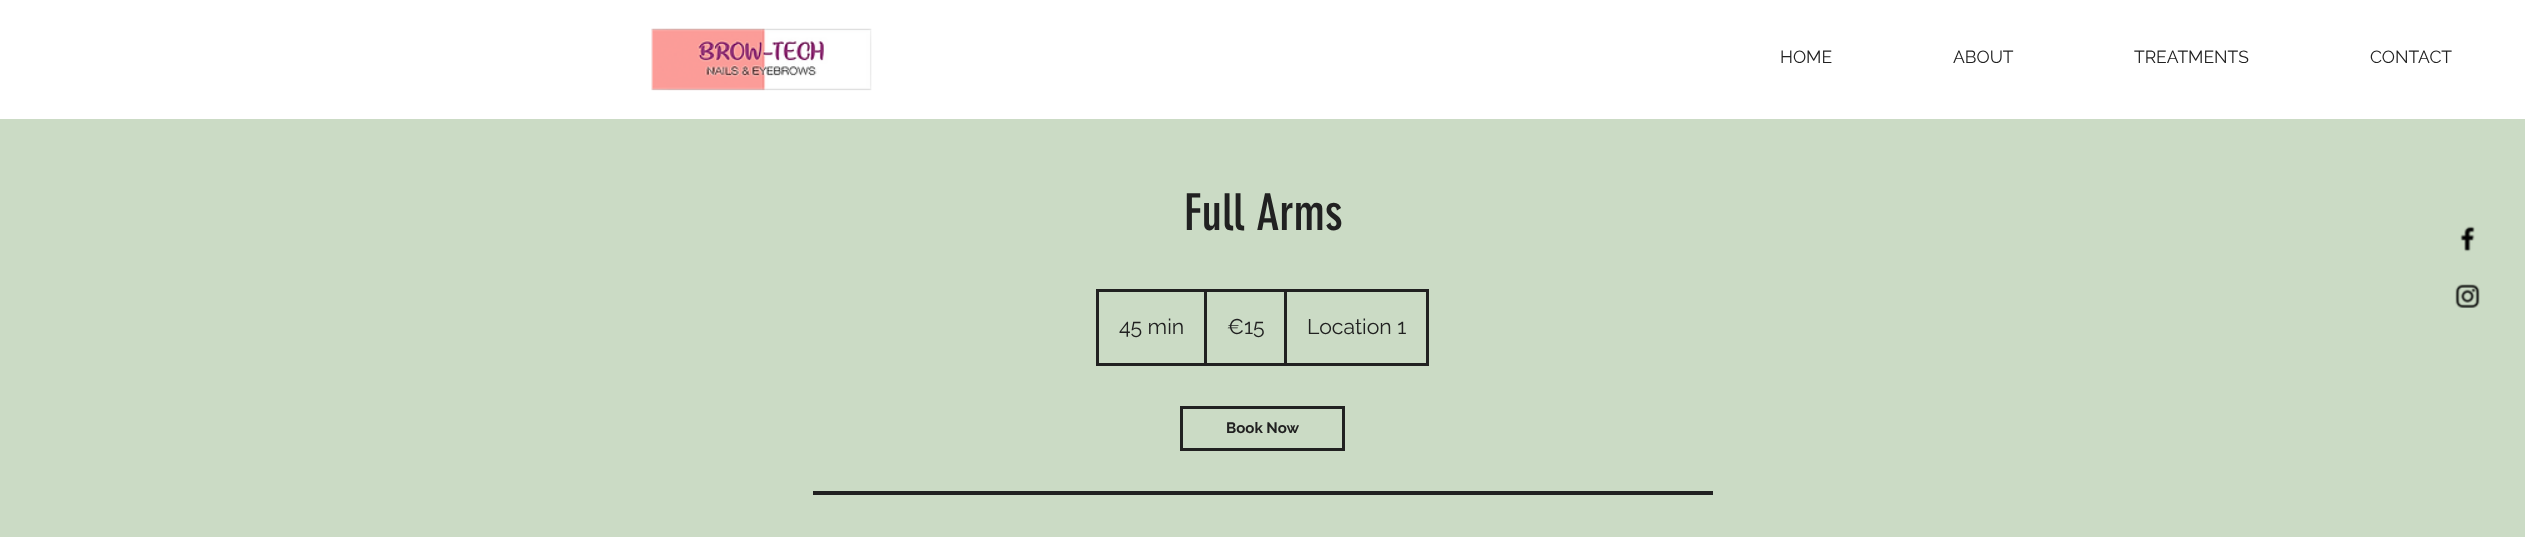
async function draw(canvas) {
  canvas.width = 2525;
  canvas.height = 537;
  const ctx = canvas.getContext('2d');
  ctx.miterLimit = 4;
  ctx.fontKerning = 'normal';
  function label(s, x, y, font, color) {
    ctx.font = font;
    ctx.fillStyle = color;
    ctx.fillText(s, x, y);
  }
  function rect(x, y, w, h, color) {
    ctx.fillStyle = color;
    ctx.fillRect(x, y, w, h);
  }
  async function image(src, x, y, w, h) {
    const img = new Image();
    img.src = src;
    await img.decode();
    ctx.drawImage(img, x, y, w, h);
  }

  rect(0, 0, 2525, 537, '#cbdbc5');
  rect(0, 0, 2525, 119, '#fff');
  await image('assets/img1.png', 651, 28, 221, 63);
  label('HOME', 1780, 63, '17.5px Raleway', '#212121');
  label('ABOUT', 1953, 63, '17.5px Raleway', '#212121');
  label('TREATMENTS', 2134, 63, '17.5px Raleway', '#212121');
  label('CONTACT', 2370, 63, '17.5px Raleway', '#212121');
  label('Full Arms', 1184, 230, '50px "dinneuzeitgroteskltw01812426"', '#212121');
  ctx.strokeStyle = '#212121';
  ctx.lineWidth = 3;
  ctx.strokeRect(1097.5, 290.5, 330, 74);
  label('45 min', 1119, 334, '21.25px Raleway', '#212121');
  rect(1204, 291, 3, 73, '#212121');
  label('€15', 1227, 334, '21.25px Raleway', '#212121');
  rect(1284, 291, 3, 73, '#212121');
  label('Location 1', 1307, 334, '21.25px Raleway', '#212121');
  ctx.strokeRect(1181.5, 407.5, 162, 42);
  label('Book Now', 1226, 433, 'bold 15px Raleway', '#212121');
  rect(813, 491, 900, 4, '#212121');
  await image('assets/img2.png', 2460, 226, 15, 26);
  await image('assets/img3.png', 2455, 284, 25, 24);
}

draw(document.querySelector('canvas'));
